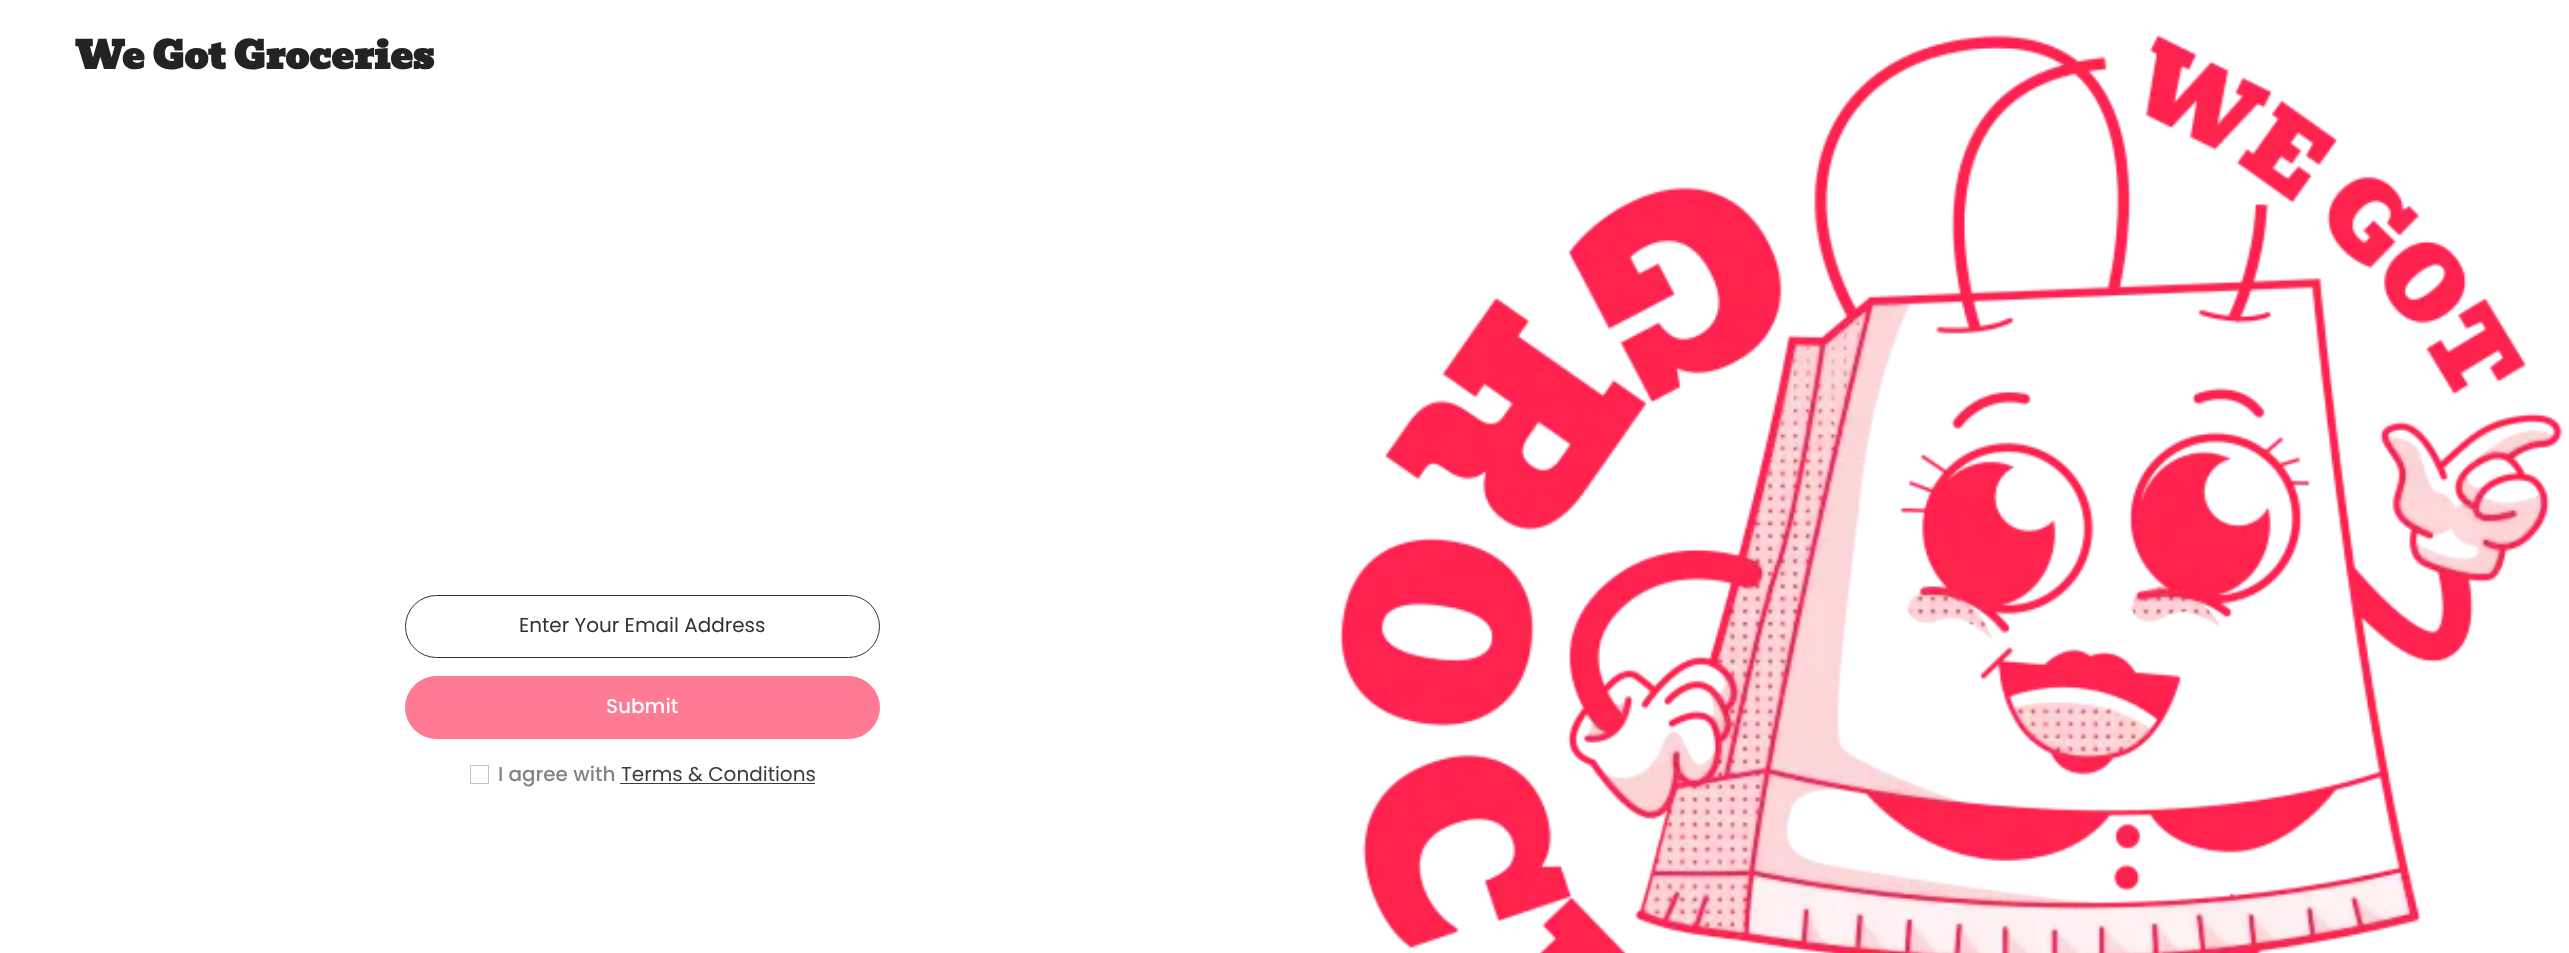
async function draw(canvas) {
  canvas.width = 2569;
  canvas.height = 953;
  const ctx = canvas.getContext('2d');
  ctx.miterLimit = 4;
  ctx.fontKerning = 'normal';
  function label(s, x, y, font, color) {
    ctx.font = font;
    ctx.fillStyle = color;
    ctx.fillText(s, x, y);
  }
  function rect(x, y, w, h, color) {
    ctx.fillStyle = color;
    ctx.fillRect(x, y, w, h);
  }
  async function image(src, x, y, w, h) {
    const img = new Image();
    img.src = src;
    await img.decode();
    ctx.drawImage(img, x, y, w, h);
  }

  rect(0, 0, 2569, 953, '#fff');
  label('We Got Groceries', 75, 69, 'bold 37.5px Bevan', '#232323');
  ctx.beginPath();
  ctx.roundRect(405.5, 595.5, 474, 62, 31);
  ctx.strokeStyle = '#323232';
  ctx.stroke();
  label('Enter Your Email Address', 519, 632, '20px Poppins', '#323232');
  ctx.fillStyle = '#ff7b95';
  ctx.beginPath();
  ctx.roundRect(405.5, 676.5, 474, 62, 31);
  ctx.fill();
  ctx.strokeStyle = '#ff7b95';
  ctx.stroke();
  label('Submit', 606, 713, '500 20px Poppins', '#fff');
  ctx.strokeStyle = '#c2c2c2';
  ctx.strokeRect(470.5, 765.5, 18, 18);
  label('I agree with', 498, 781, '500 20px Poppins', '#848484');
  label('Terms & Conditions', 621, 781, '20px Poppins', '#3c3c3c');
  rect(620, 783, 195, 1, '#3c3c3c');
  await image('assets/img1.png', 1339, 35, 1224, 918);
}

draw(document.querySelector('canvas'));
